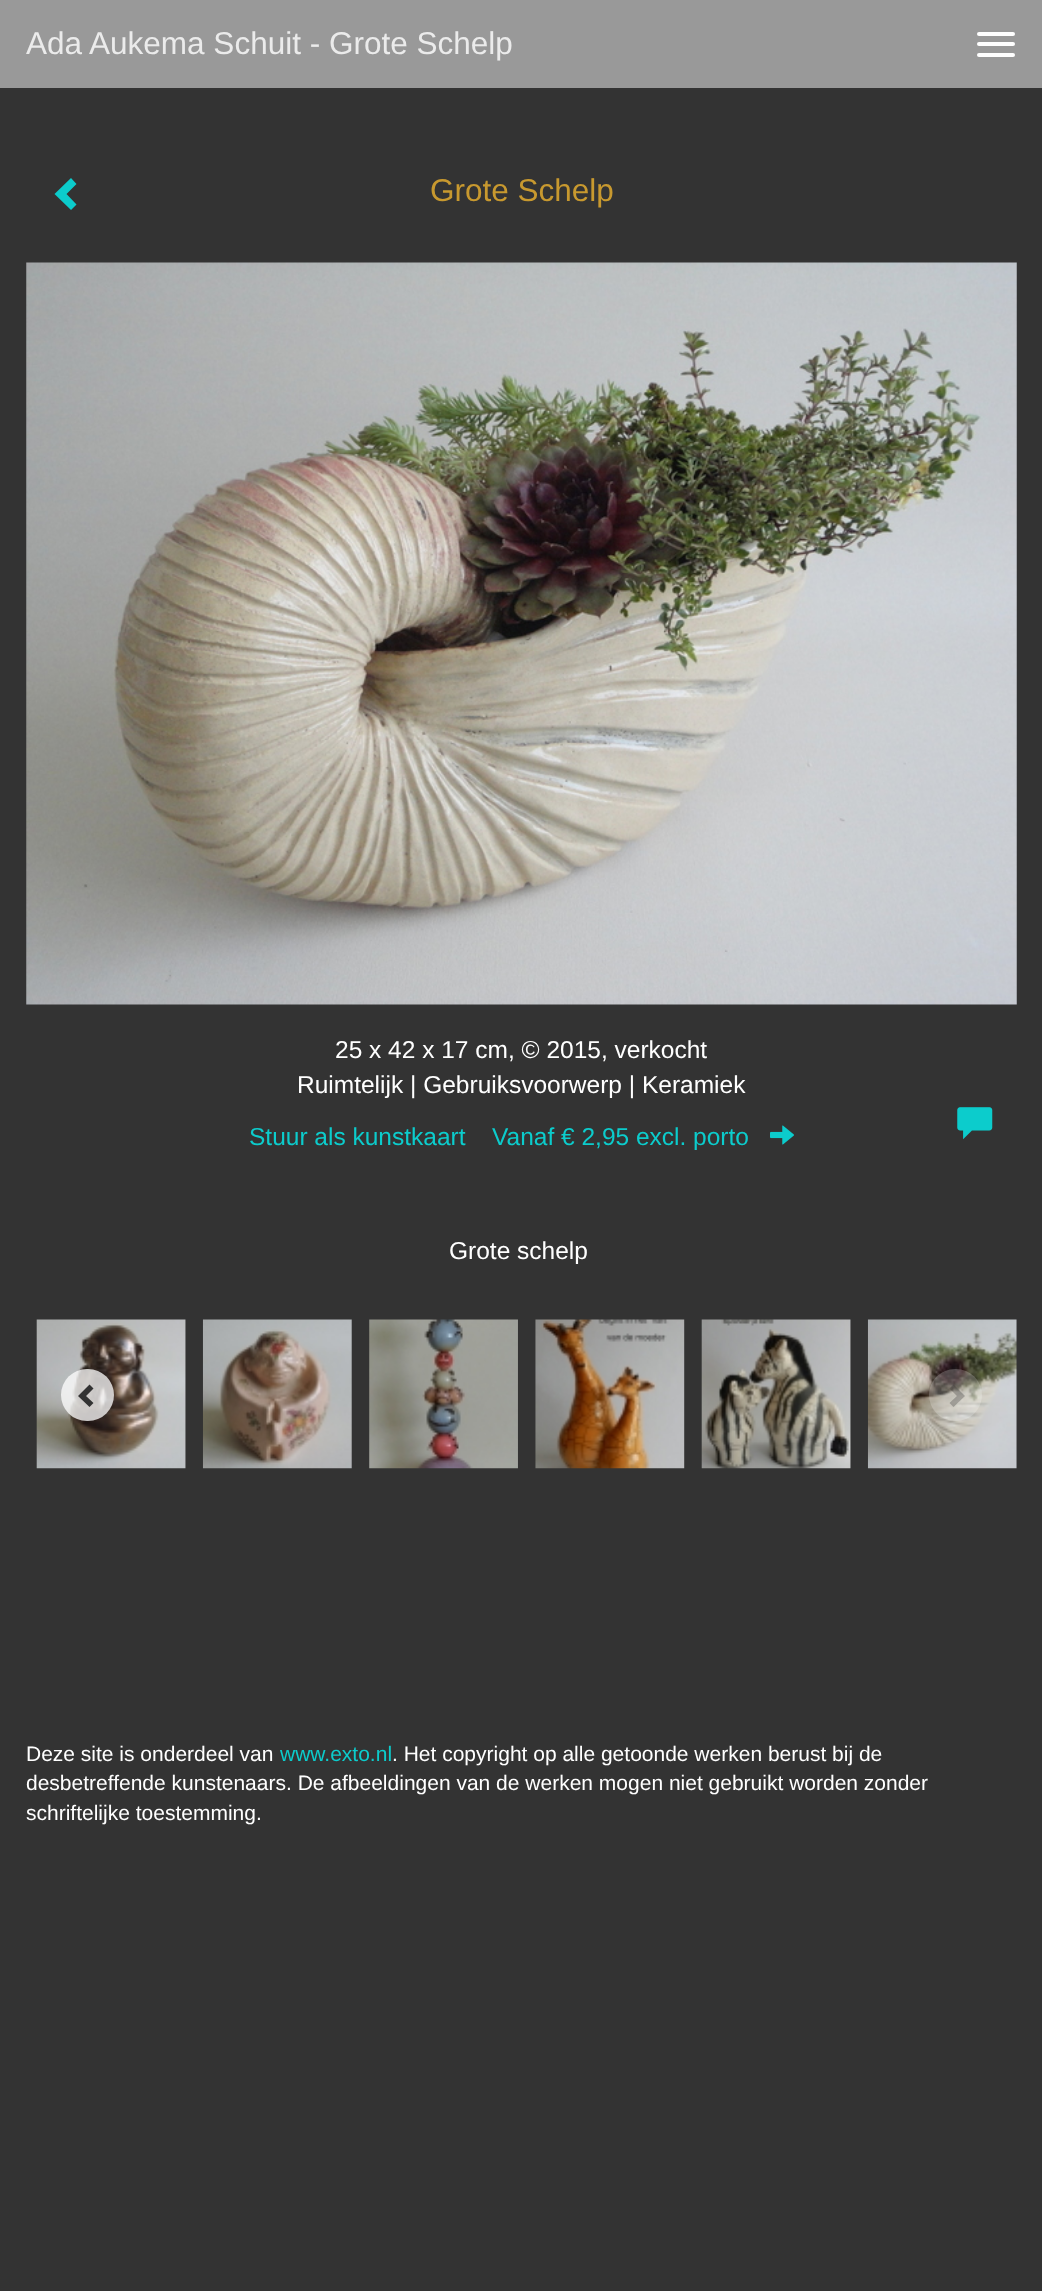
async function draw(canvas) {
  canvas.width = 1042;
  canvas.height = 2291;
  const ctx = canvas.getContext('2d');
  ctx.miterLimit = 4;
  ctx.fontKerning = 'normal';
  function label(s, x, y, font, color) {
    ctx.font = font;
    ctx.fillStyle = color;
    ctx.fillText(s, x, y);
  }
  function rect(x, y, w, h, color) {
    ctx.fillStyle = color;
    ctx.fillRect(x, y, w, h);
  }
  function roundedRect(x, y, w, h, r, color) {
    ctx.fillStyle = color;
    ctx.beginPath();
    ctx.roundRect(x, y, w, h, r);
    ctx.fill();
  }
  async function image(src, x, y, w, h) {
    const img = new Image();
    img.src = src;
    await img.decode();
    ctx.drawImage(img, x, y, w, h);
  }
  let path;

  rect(0, 0, 1042, 2291, '#333');
  rect(0, 0, 1042, 88, '#999');
  label('Ada Aukema Schuit - Grote Schelp', 26, 54, '31.5px Liberation Sans', '#ebebeb');
  roundedRect(977, 32, 38, 4, 2, '#fff');
  roundedRect(977, 42, 38, 4, 2, '#fff');
  roundedRect(977, 53, 38, 4, 2, '#fff');
  ctx.fillStyle = '#0ccccc';
  path = new Path2D('M76.5 184L66.5 194L76.5 204.5L71 210L54.5 194L71 178Z');
  ctx.fill(path);
  label('Grote Schelp', 430, 201, '31.5px Liberation Sans', '#c8992f');
  await image('assets/img1.png', 26, 262, 991, 743);
  label('25 x 42 x 17 cm, © 2015, verkocht', 335, 1058, '24.5px Liberation Sans', '#fff');
  label('Ruimtelijk | Gebruiksvoorwerp | Keramiek', 297, 1093, '24.5px Liberation Sans', '#fff');
  label('Stuur als kunstkaart', 249, 1145, '24.5px Liberation Sans', '#0ccccc');
  label('Vanaf € 2,95 excl. porto', 492, 1145, '24.5px Liberation Sans', '#0ccccc');
  await image('assets/img2.png', 770, 1125, 24, 20);
  await image('assets/img3.png', 957, 1107, 36, 33);
  label('Grote schelp', 449, 1259, '24.5px Liberation Sans', '#fff');
  await image('assets/img4.png', 36, 1319, 150, 150);
  await image('assets/img5.png', 202, 1319, 150, 150);
  await image('assets/img6.png', 369, 1319, 149, 150);
  await image('assets/img7.png', 535, 1319, 150, 150);
  await image('assets/img8.png', 701, 1319, 150, 150);
  await image('assets/img9.png', 867, 1319, 150, 150);
  roundedRect(61, 1369, 53, 52, 26, '#ffffffbf');
  ctx.fillStyle = '#333';
  path = new Path2D('M93.5 1388.5L86 1396L93.5 1403L89.5 1407L78 1396L89.5 1384.5Z');
  ctx.fill(path);
  roundedRect(929, 1369, 53, 52, 26, '#ffffff38');
  ctx.fillStyle = '#3333334d';
  path = new Path2D('M965 1396L953.5 1407L949.5 1403L957 1396L949.5 1388.5L953.5 1384.5Z');
  ctx.fill(path);
  label('Deze site is onderdeel van', 26, 1761, '21px Liberation Sans', '#fff');
  label('www.exto.nl', 280, 1761, '21px Liberation Sans', '#0ccccc');
  label('. Het copyright op alle getoonde werken berust bij de', 392, 1761, '21px Liberation Sans', '#fff');
  label('desbetreffende kunstenaars. De afbeeldingen van de werken mogen niet gebruikt worden zonder', 26, 1790, '21px Liberation Sans', '#fff');
  label('schriftelijke toestemming.', 26, 1820, '21px Liberation Sans', '#fff');
}

draw(document.querySelector('canvas'));
